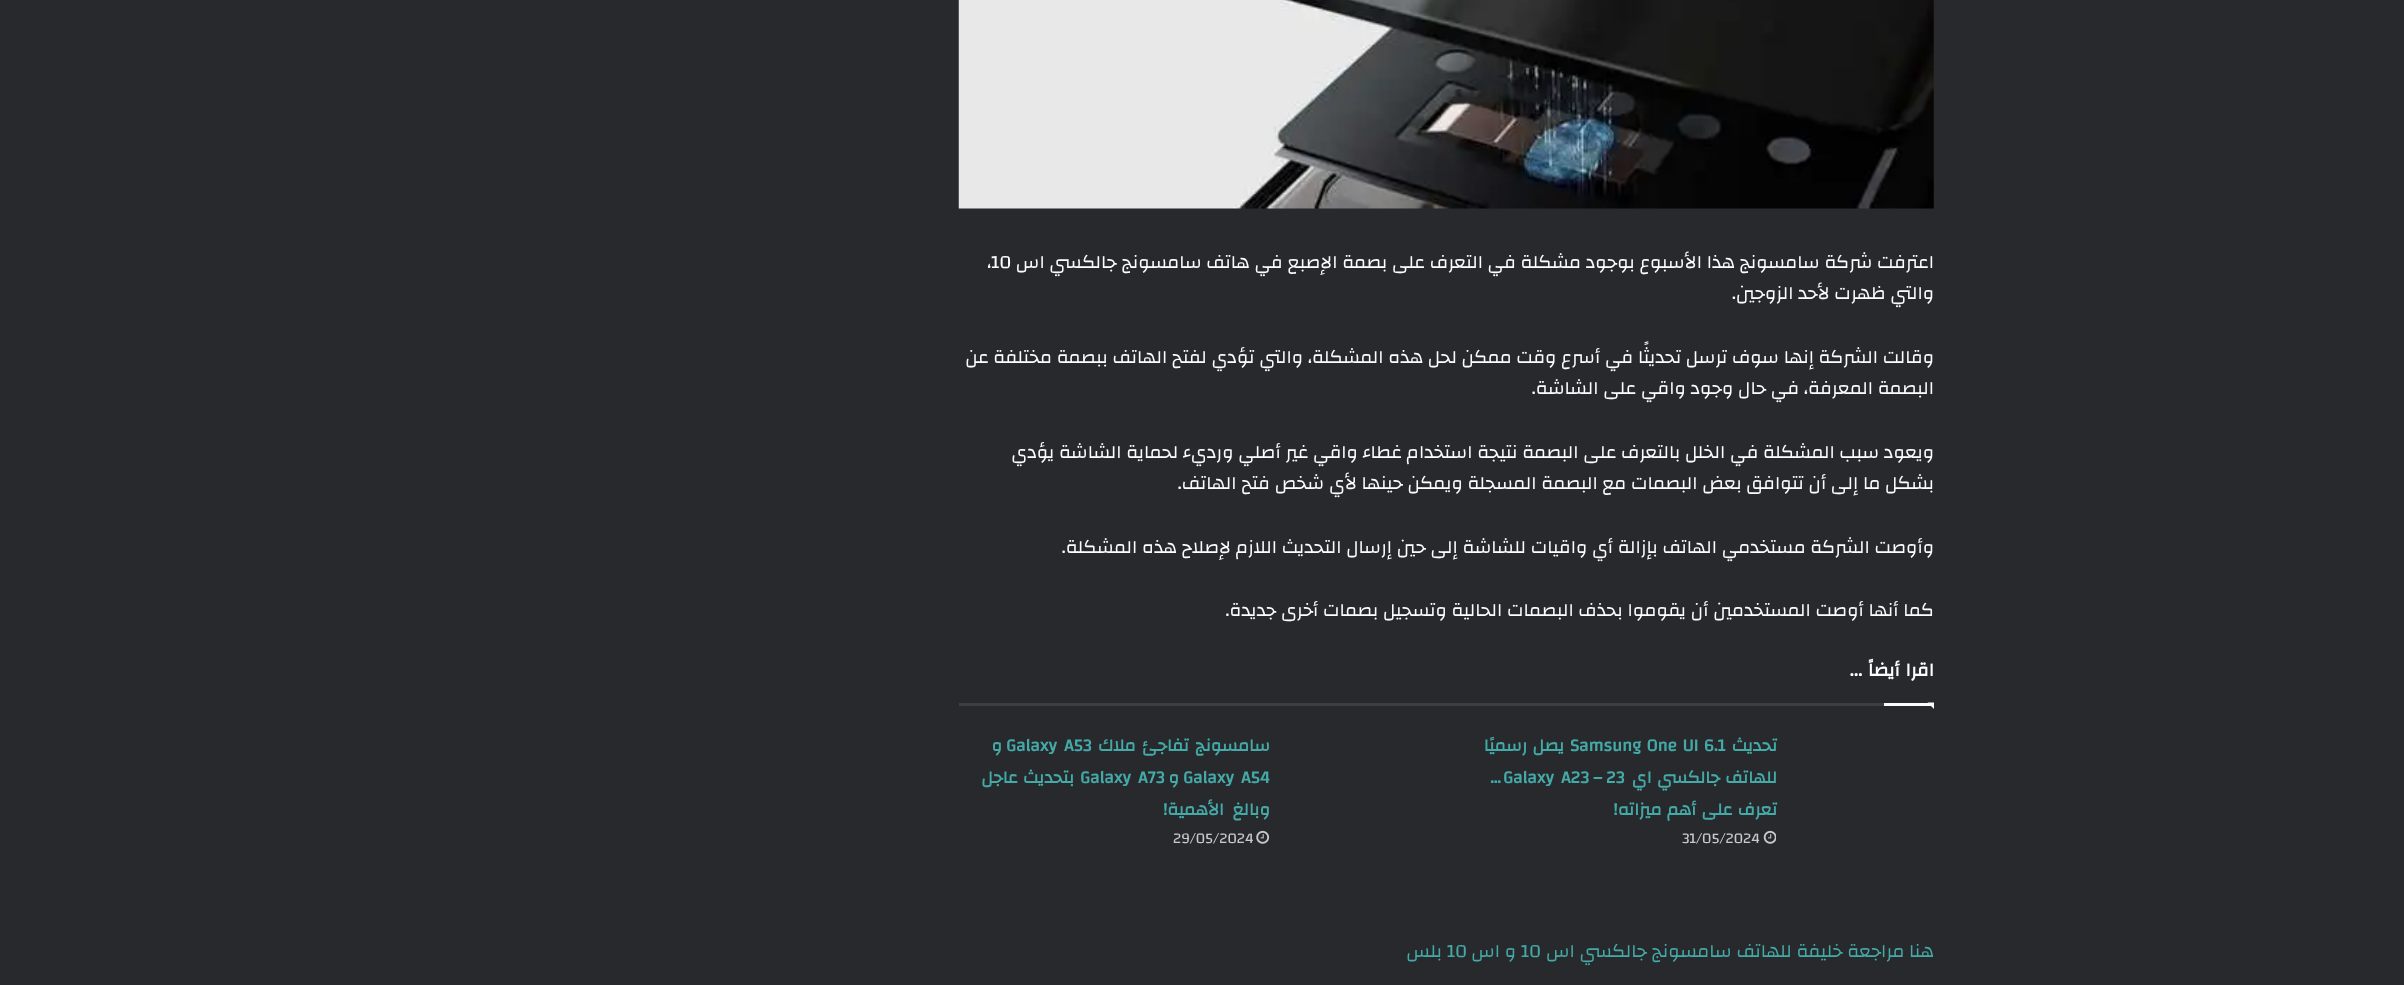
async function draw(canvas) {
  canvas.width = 2404;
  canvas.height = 985;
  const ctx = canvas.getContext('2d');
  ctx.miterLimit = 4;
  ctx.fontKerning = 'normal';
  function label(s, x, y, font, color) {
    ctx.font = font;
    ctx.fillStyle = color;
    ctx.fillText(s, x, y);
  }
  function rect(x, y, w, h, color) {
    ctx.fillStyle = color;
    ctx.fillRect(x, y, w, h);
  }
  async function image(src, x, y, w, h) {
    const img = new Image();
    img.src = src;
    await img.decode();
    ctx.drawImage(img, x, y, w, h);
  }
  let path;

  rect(0, 0, 2404, 985, '#27292d');
  await image('assets/img1.png', 958, 0, 976, 209);
  ctx.direction = 'rtl';
  label('اعترفت شركة سامسونج هذا الأسبوع بوجود مشكلة في التعرف على بصمة الإصبع في هاتف سامسونج جالكسي اس', 1934, 268, '18.75px Changa', '#fdfdfd');
  ctx.direction = 'ltr';
  label('،10', 987, 268, '18.75px Changa', '#fdfdfd');
  ctx.direction = 'rtl';
  label('والتي ظهرت لأحد الزوجين.', 1934, 299, '18.75px Changa', '#fdfdfd');
  label('وقالت الشركة إنها سوف ترسل تحديثًا في أسرع وقت ممكن لحل هذه المشكلة، والتي تؤدي لفتح الهاتف ببصمة مختلفة عن', 1934, 363, '18.75px Changa', '#fdfdfd');
  label('البصمة المعرفة، في حال وجود واقي على الشاشة.', 1934, 394, '18.75px Changa', '#fdfdfd');
  label('ويعود سبب المشكلة في الخلل بالتعرف على البصمة نتيجة استخدام غطاء واقي غير أصلي ورديء لحماية الشاشة يؤدي', 1934, 458, '18.75px Changa', '#fdfdfd');
  label('بشكل ما إلى أن تتوافق بعض البصمات مع البصمة المسجلة ويمكن حينها لأي شخص فتح الهاتف.', 1934, 489, '18.75px Changa', '#fdfdfd');
  label('وأوصت الشركة مستخدمي الهاتف بإزالة أي واقيات للشاشة إلى حين إرسال التحديث اللازم لإصلاح هذه المشكلة.', 1934, 553, '18.75px Changa', '#fdfdfd');
  label('كما أنها أوصت المستخدمين أن يقوموا بحذف البصمات الحالية وتسجيل بصمات أخرى جديدة.', 1934, 616, '18.75px Changa', '#fdfdfd');
  rect(959, 703, 925, 3, '#3c3e42');
  ctx.wordSpacing = '1px';
  label('اقرا أيضاً ...', 1934, 676, 'bold 18.75px Changa', '#fdfdfd');
  ctx.fillStyle = '#fbfbfb';
  path = new Path2D('M1927.5 702.5H1934V709Z');
  ctx.fill(path);
  rect(1884, 703, 50, 3, '#fbfbfb');
  ctx.wordSpacing = '0px';
  label('تحديث', 1777, 751, 'bold 17.5px Changa', '#44aaa7');
  ctx.wordSpacing = '1px';
  ctx.direction = 'ltr';
  label('Samsung One UI 6.1', 1570, 751, 'bold 17.5px Changa', '#44aaa7');
  ctx.direction = 'rtl';
  label('يصل رسميًا', 1564, 751, 'bold 17.5px Changa', '#44aaa7');
  label('للهاتف جالكسي اي', 1777, 783, 'bold 17.5px Changa', '#44aaa7');
  ctx.wordSpacing = '0px';
  ctx.direction = 'ltr';
  label('23', 1606, 783, 'bold 17.5px Changa', '#44aaa7');
  label('–', 1593, 783, 'bold 17.5px Changa', '#44aaa7');
  ctx.wordSpacing = '3px';
  label('Galaxy A23', 1503, 783, 'bold 17.5px Changa', '#44aaa7');
  ctx.wordSpacing = '0px';
  label('…', 1490, 783, 'bold 17.5px Changa', '#44aaa7');
  ctx.wordSpacing = '1px';
  ctx.direction = 'rtl';
  label('تعرف على أهم ميزاته!', 1777, 815, 'bold 17.5px Changa', '#44aaa7');
  await image('assets/img2.png', 1763, 830, 13, 14);
  ctx.wordSpacing = '0px';
  ctx.direction = 'ltr';
  label('31/05/2024', 1682, 843, '15px Changa', '#c9c9c9');
  ctx.wordSpacing = '2px';
  ctx.direction = 'rtl';
  label('سامسونج تفاجئ ملاك', 1270, 751, 'bold 17.5px Changa', '#44aaa7');
  ctx.wordSpacing = '3px';
  ctx.direction = 'ltr';
  label('Galaxy A53', 1006, 751, 'bold 17.5px Changa', '#44aaa7');
  ctx.wordSpacing = '0px';
  ctx.direction = 'rtl';
  label('و', 1002, 751, 'bold 17.5px Changa', '#44aaa7');
  ctx.wordSpacing = '3px';
  ctx.direction = 'ltr';
  label('Galaxy A54', 1183, 783, 'bold 17.5px Changa', '#44aaa7');
  ctx.wordSpacing = '0px';
  ctx.direction = 'rtl';
  label('و', 1179, 783, 'bold 17.5px Changa', '#44aaa7');
  ctx.wordSpacing = '3px';
  ctx.direction = 'ltr';
  label('Galaxy A73', 1080, 783, 'bold 17.5px Changa', '#44aaa7');
  ctx.wordSpacing = '1px';
  ctx.direction = 'rtl';
  label('بتحديث عاجل', 1074, 783, 'bold 17.5px Changa', '#44aaa7');
  ctx.wordSpacing = '4px';
  label('وبالغ الأهمية!', 1270, 815, 'bold 17.5px Changa', '#44aaa7');
  await image('assets/img3.png', 1256, 830, 14, 14);
  ctx.wordSpacing = '0px';
  ctx.direction = 'ltr';
  label('29/05/2024', 1173, 843, '15px Changa', '#c9c9c9');
  ctx.direction = 'rtl';
  label('هنا مراجعة خليفة للهاتف سامسونج جالكسي اس', 1934, 957, '18.75px Changa', '#44aaa7');
  ctx.direction = 'ltr';
  label('10', 1521, 957, '18.75px Changa', '#44aaa7');
  ctx.direction = 'rtl';
  label('و اس', 1516, 957, '18.75px Changa', '#44aaa7');
  ctx.direction = 'ltr';
  label('10', 1447, 957, '18.75px Changa', '#44aaa7');
  ctx.direction = 'rtl';
  label('بلس', 1442, 957, '18.75px Changa', '#44aaa7');
}

draw(document.querySelector('canvas'));
